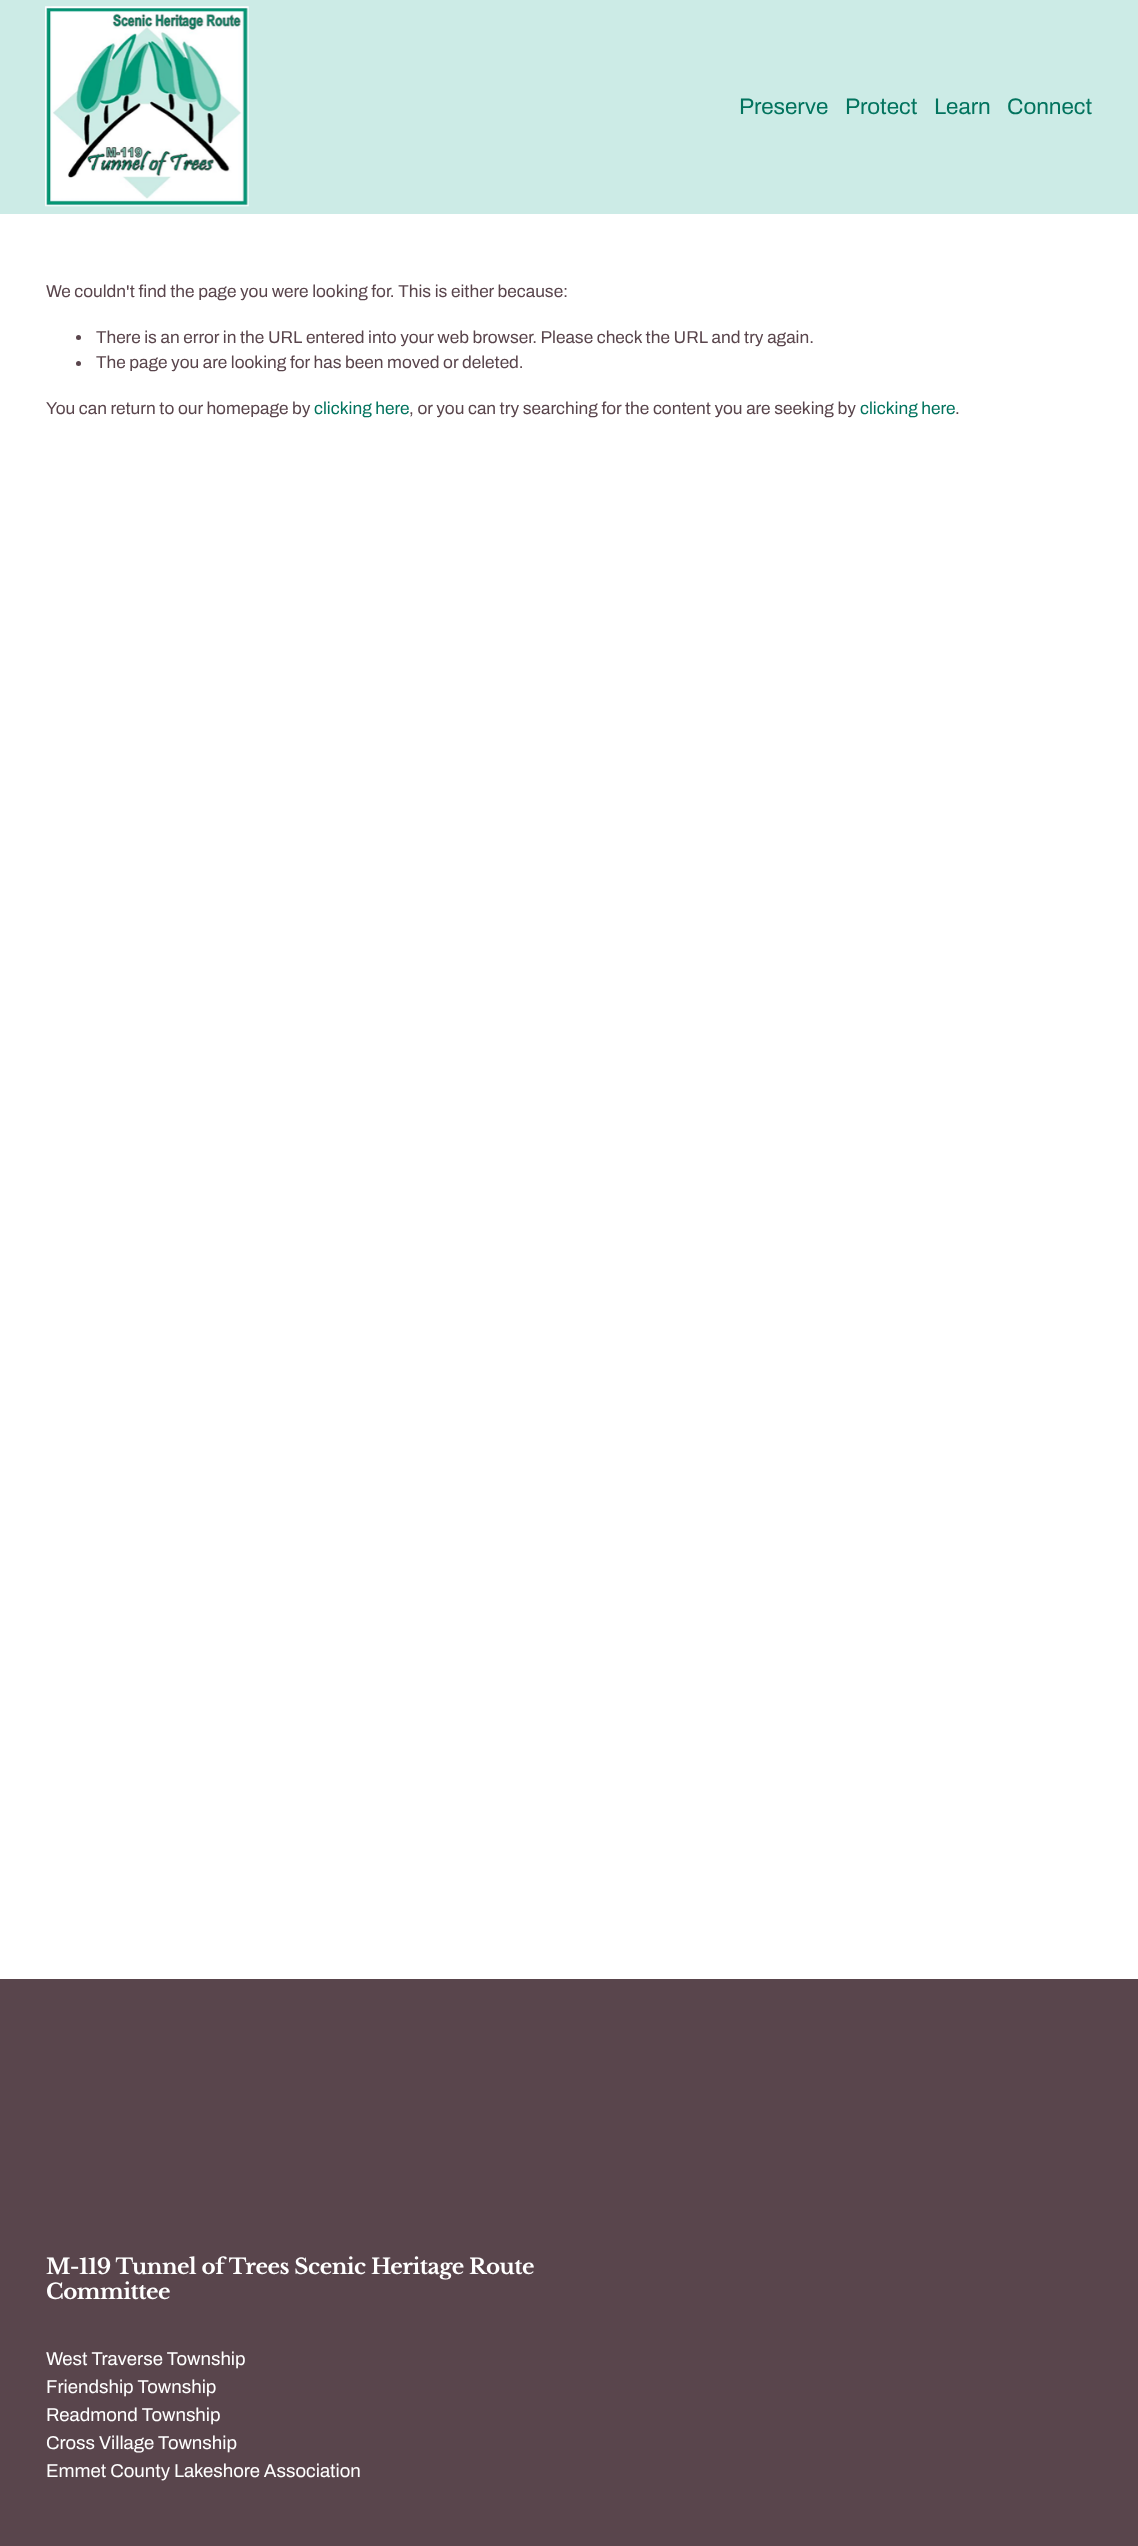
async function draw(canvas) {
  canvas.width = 1138;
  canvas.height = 2546;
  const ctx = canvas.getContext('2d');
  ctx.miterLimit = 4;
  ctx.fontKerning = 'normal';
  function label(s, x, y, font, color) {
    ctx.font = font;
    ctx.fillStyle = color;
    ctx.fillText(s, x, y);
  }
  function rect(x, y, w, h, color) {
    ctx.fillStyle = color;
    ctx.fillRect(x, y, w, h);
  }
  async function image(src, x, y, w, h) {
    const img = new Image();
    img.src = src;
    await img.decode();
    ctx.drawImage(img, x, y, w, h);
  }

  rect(0, 0, 1138, 2546, '#fff');
  rect(0, 0, 1138, 214, '#ccebe6');
  await image('assets/img1.png', 45, 6, 204, 201);
  label('Preserve', 739, 114, '22.5px Archivo', '#02735e');
  label('Protect', 845, 114, '22.5px Archivo', '#02735e');
  label('Learn', 934, 114, '22.5px Archivo', '#02735e');
  label('Connect', 1007, 114, '22.5px Archivo', '#02735e');
  label('We couldn\'t find the page you were looking for. This is either because:', 46, 297, '17.25px Archivo', '#59454c');
  ctx.beginPath();
  ctx.arc(78.5, 337.5, 2.5, 0, 2 * Math.PI);
  ctx.fill();
  label('There is an error in the URL entered into your web browser. Please check the URL and try again.', 96, 343, '17.25px Archivo', '#59454c');
  ctx.beginPath();
  ctx.arc(78.5, 363.5, 2.5, 0, 2 * Math.PI);
  ctx.fill();
  label('The page you are looking for has been moved or deleted.', 96, 368, '17.25px Archivo', '#59454c');
  label('You can return to our homepage by', 46, 414, '17.25px Archivo', '#59454c');
  label('clicking here', 314, 414, '17.25px Archivo', '#02735e');
  label(', or you can try searching for the content you are seeking by', 409, 414, '17.25px Archivo', '#59454c');
  label('clicking here', 860, 414, '17.25px Archivo', '#02735e');
  label('.', 955, 414, '17.25px Archivo', '#59454c');
  rect(0, 1979, 1138, 567, '#59454c');
  ctx.letterSpacing = '-0.45px';
  label('M-119 Tunnel of Trees Scenic Heritage Route', 46, 2274, 'bold 21.4px Libre Baskerville', '#fff');
  label('Committee', 46, 2299, 'bold 21.4px Libre Baskerville', '#fff');
  ctx.letterSpacing = '0px';
  label('West Traverse Township', 46, 2365, '18.6px Archivo', '#fff');
  label('Friendship Township', 46, 2393, '18.6px Archivo', '#fff');
  label('Readmond Township', 46, 2421, '18.6px Archivo', '#fff');
  label('Cross Village Township', 46, 2449, '18.6px Archivo', '#fff');
  label('Emmet County Lakeshore Association', 46, 2477, '18.6px Archivo', '#fff');
}

draw(document.querySelector('canvas'));
